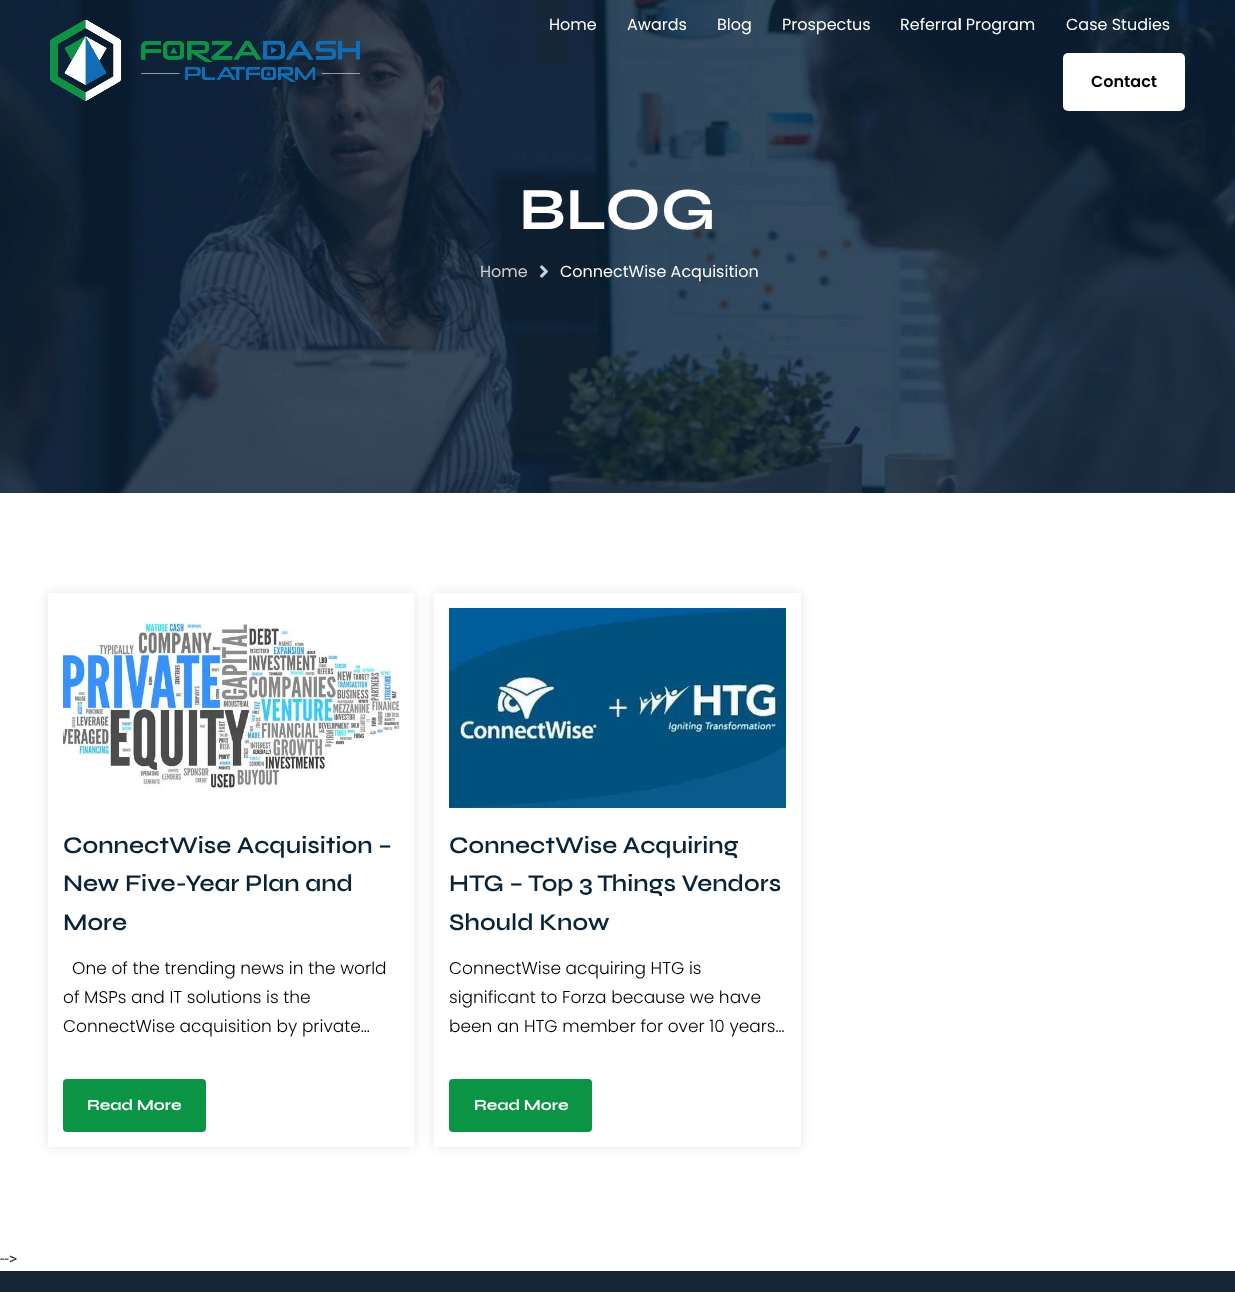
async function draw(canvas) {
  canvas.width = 1235;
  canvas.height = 1292;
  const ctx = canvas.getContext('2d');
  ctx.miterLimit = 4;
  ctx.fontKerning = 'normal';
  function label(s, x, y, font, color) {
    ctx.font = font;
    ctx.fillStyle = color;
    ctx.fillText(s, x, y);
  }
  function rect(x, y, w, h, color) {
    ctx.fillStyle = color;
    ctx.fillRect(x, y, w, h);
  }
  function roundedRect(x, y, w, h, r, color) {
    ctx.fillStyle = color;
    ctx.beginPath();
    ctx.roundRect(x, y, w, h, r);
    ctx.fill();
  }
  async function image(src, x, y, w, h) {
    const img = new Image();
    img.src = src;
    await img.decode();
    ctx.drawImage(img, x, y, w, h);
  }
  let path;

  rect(0, 0, 1235, 1292, '#fff');
  await image('assets/img3.png', 0, 0, 1235, 493);
  await image('assets/img1.png', 50, 20, 310, 81);
  label('Home', 549, 30, '16px Poppins', '#fff');
  label('Awards', 627, 30, '16px Poppins', '#fff');
  label('Blog', 717, 30, '16px Poppins', '#fff');
  label('Prospectus', 782, 30, '16px Poppins', '#fff');
  label('Referral Program', 900, 30, '16px Poppins', '#fff');
  label('Case Studies', 1066, 30, '16px Poppins', '#fff');
  await image('assets/img2.png', 50, 20, 310, 81);
  label('l', 958, 30, '16px Poppins', '#fff');
  roundedRect(1063, 53, 122, 58, 5, '#fff');
  label('Contact', 1091, 87, '600 16px Poppins', '#000');
  label('BLOG', 519, 229, 'bold 60px Syne', '#fff');
  label('Home', 480, 277, '16px Poppins', '#d0d0d0');
  await image('assets/img4.png', 540, 265, 8, 13);
  label('ConnectWise Acquisition', 560, 277, '16px Poppins', '#fff');
  ctx.save();
  path = new Path2D('M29 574H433V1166H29ZM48 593H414V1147H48Z');
  ctx.clip(path, 'evenodd');
  ctx.fillStyle = '#0000001a';
  ctx.filter = 'blur(6px)';
  ctx.beginPath();
  ctx.rect(48, 593, 366, 554);
  ctx.fill();
  ctx.filter = 'none';
  ctx.restore();
  await image('assets/img5.png', 63, 620, 336, 169);
  label('ConnectWise Acquisition –', 63, 853, '600 24px Syne', '#092338');
  label('New Five-Year Plan and', 63, 891, '600 24px Syne', '#092338');
  label('More', 63, 930, '600 24px Syne', '#092338');
  label('One of the trending news in the world', 72, 974, '300 17px Poppins', '#000');
  label('of MSPs and IT solutions is the', 63, 1003, '300 17px Poppins', '#000');
  label('ConnectWise acquisition by private…', 63, 1032, '300 17px Poppins', '#000');
  roundedRect(63, 1079, 143, 53, 4, '#0b9444');
  label('Read More', 87, 1110, 'bold 15.5px Syne', '#fff');
  ctx.save();
  path = new Path2D('M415 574H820V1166H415ZM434 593H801V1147H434Z');
  ctx.clip(path, 'evenodd');
  ctx.fillStyle = '#0000001a';
  ctx.filter = 'blur(6px)';
  ctx.beginPath();
  ctx.rect(434, 593, 367, 554);
  ctx.fill();
  ctx.filter = 'none';
  ctx.restore();
  await image('assets/img6.png', 449, 608, 337, 200);
  label('ConnectWise Acquiring', 449, 853, '600 24px Syne', '#092338');
  label('HTG – Top 3 Things Vendors', 449, 891, '600 24px Syne', '#092338');
  label('Should Know', 449, 930, '600 24px Syne', '#092338');
  label('ConnectWise acquiring HTG is', 449, 974, '300 17px Poppins', '#000');
  label('significant to Forza because we have', 449, 1003, '300 17px Poppins', '#000');
  label('been an HTG member for over 10 years…', 449, 1032, '300 17px Poppins', '#000');
  roundedRect(449, 1079, 143, 53, 4, '#0b9444');
  label('Read More', 474, 1110, 'bold 15.5px Syne', '#fff');
  label('-->', 0, 1264, '16px Roboto', '#333');
  rect(0, 1271, 1235, 21, '#172534');
}

draw(document.querySelector('canvas'));
